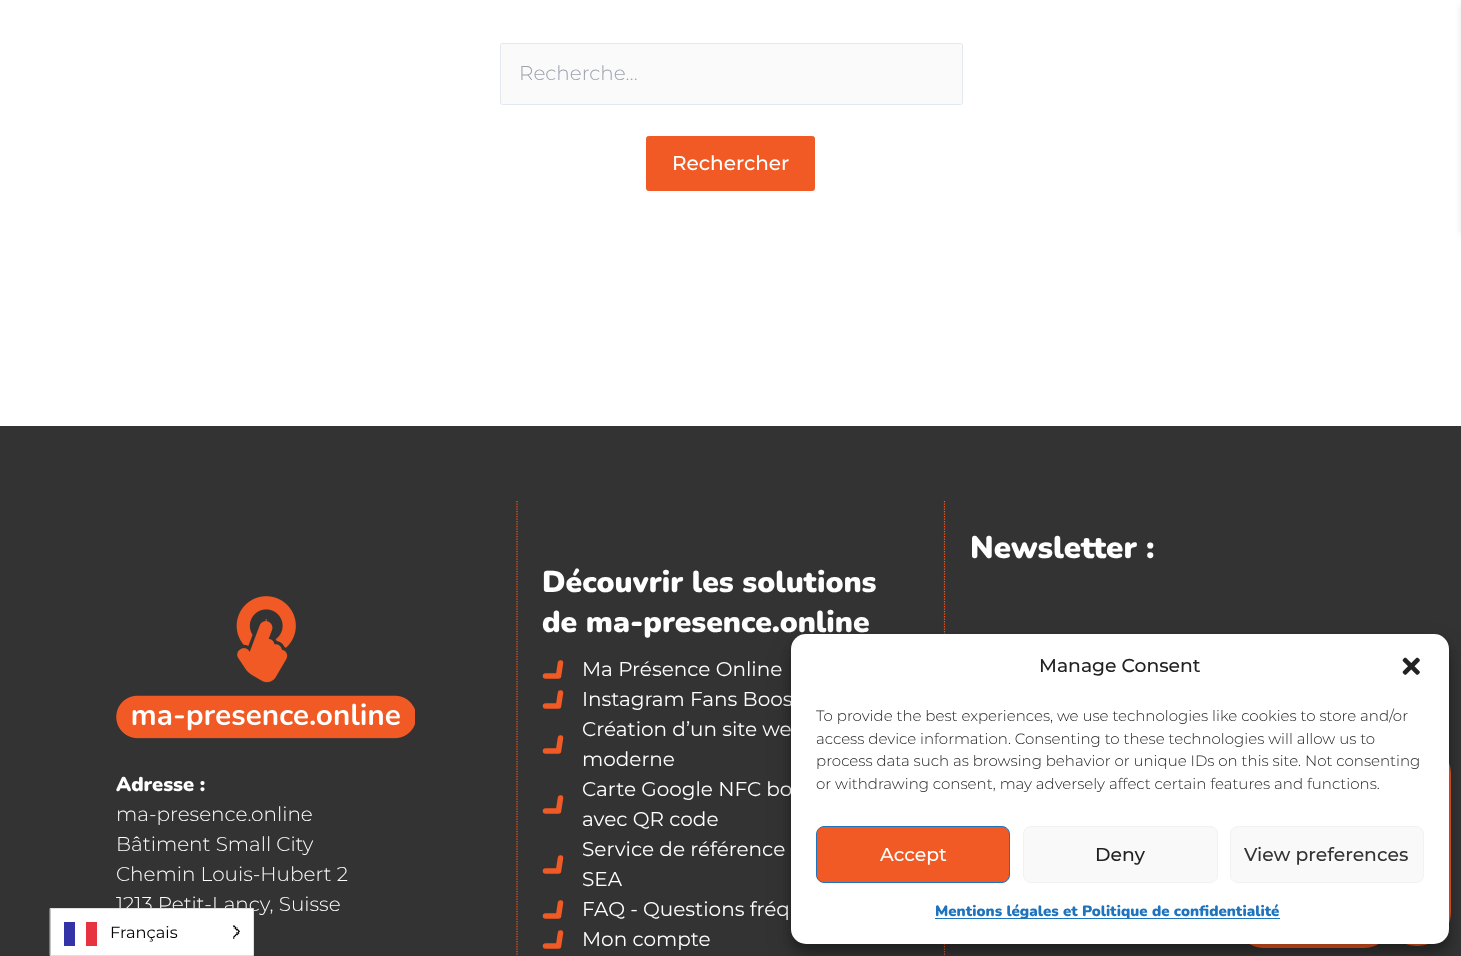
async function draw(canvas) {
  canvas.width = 1461;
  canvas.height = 956;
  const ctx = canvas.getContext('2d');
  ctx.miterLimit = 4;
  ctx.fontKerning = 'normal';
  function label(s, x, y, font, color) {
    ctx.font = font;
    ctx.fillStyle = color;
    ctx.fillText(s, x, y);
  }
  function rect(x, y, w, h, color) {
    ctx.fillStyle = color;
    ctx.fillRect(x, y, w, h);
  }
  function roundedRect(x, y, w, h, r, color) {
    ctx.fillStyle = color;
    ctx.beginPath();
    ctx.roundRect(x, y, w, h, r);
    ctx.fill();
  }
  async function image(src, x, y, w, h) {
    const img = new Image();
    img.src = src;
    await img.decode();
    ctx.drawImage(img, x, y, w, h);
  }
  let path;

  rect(0, 0, 1461, 956, '#fff');
  ctx.fillStyle = '#fafafa';
  ctx.beginPath();
  ctx.roundRect(500.5, 43.5, 462, 61, 2);
  ctx.fill();
  ctx.strokeStyle = '#e2e8f0';
  ctx.stroke();
  label('Recherche…', 519, 80, '300 20px Montserrat', '#9ca3af');
  ctx.fillStyle = '#f15a24';
  ctx.beginPath();
  ctx.roundRect(646.5, 136.5, 168, 54, 2);
  ctx.fill();
  ctx.strokeStyle = '#f15a24';
  ctx.stroke();
  label('Rechercher', 672, 170, '500 20px Montserrat', '#fff');
  rect(0, 426, 1461, 530, '#333');
  path = new Path2D('M944.5 501V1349');
  ctx.lineWidth = 1.2;
  ctx.setLineDash([1.25, 1.25]);
  ctx.stroke(path);
  label('Newsletter :', 970, 558, '200 31.25px Nunito', '#fff');
  ctx.fillStyle = '#f15a24';
  ctx.beginPath();
  ctx.roundRect(1234.5, 888.5, 159, 59, 29.5);
  ctx.fill();
  ctx.lineWidth = 1;
  ctx.setLineDash([]);
  ctx.stroke();
  path = new Path2D('M517 501V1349');
  ctx.lineWidth = 1.2;
  ctx.setLineDash([1.25, 1.25]);
  ctx.stroke(path);
  await image('assets/img1.png', 116, 596, 299, 143);
  label('Adresse :', 116, 791, '200 20px Nunito', '#fff');
  label('ma-presence.online', 116, 821, '300 20px Montserrat', '#fff');
  label('Bâtiment Small City', 116, 851, '300 20px Montserrat', '#fff');
  label('Chemin Louis-Hubert 2', 116, 881, '300 20px Montserrat', '#fff');
  label('1213 Petit-Lancy, Suisse', 116, 911, '300 20px Montserrat', '#fff');
  label('Découvrir les solutions', 542, 592, '200 30px Nunito', '#fff');
  label('de ma-presence.online', 542, 632, '200 30px Nunito', '#fff');
  path = new Path2D('M560.5 663L558.5 676M545.5 676H558.5M560.5 693L558.5 706M545.5 706H558.5');
  ctx.lineWidth = 5.5;
  ctx.lineCap = 'round';
  ctx.setLineDash([]);
  ctx.stroke(path);
  label('Ma Présence Online', 582, 676, '20px Montserrat', '#fff');
  label('Instagram Fans Boos', 582, 706, '20px Montserrat', '#fff');
  label('Création d’un site we', 582, 736, '20px Montserrat', '#fff');
  path = new Path2D('M560.5 738L558.5 751M545.5 751H558.5');
  ctx.stroke(path);
  label('moderne', 582, 766, '20px Montserrat', '#fff');
  label('Carte Google NFC bo', 582, 796, '20px Montserrat', '#fff');
  path = new Path2D('M560.5 798L558.5 811M545.5 811H558.5');
  ctx.stroke(path);
  label('avec QR code', 582, 826, '20px Montserrat', '#fff');
  label('Service de référence', 582, 856, '20px Montserrat', '#fff');
  path = new Path2D('M560.5 858L558.5 871M545.5 871H558.5');
  ctx.stroke(path);
  label('SEA', 582, 886, '20px Montserrat', '#fff');
  path = new Path2D('M560.5 903L558.5 916M545.5 916H558.5M560.5 933L558.5 946M545.5 946H558.5');
  ctx.stroke(path);
  label('FAQ - Questions fréq', 582, 916, '20px Montserrat', '#fff');
  label('Mon compte', 582, 946, '20px Montserrat', '#fff');
  ctx.fillStyle = '#0000001a';
  ctx.filter = 'blur(3px)';
  ctx.beginPath();
  ctx.rect(1461, 4, 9, 231);
  ctx.fill();
  ctx.filter = 'none';
  ctx.fillStyle = '#f15a24';
  ctx.beginPath();
  ctx.roundRect(1383.5, 740.5, 67, 205, 33.5);
  ctx.fill();
  ctx.lineWidth = 1;
  ctx.stroke();
  ctx.fillStyle = '#0000003b';
  ctx.filter = 'blur(4px)';
  ctx.beginPath();
  ctx.roundRect(791, 641, 658, 310, 15);
  ctx.fill();
  ctx.filter = 'none';
  ctx.fillStyle = '#00000030';
  ctx.filter = 'blur(12.5px)';
  ctx.beginPath();
  ctx.roundRect(791, 646, 658, 310, 15);
  ctx.fill();
  ctx.filter = 'none';
  roundedRect(791, 634, 658, 310, 15, '#fff');
  label('Manage Consent', 1039, 672, '500 18.75px Montserrat', '#222');
  await image('assets/img2.png', 1402, 657, 18, 18);
  label('To provide the best experiences, we use technologies like cookies to store and/or', 816, 721, '300 15px Montserrat', '#222');
  label('access device information. Consenting to these technologies will allow us to', 816, 744, '300 15px Montserrat', '#222');
  label('process data such as browsing behavior or unique IDs on this site. Not consenting', 816, 766, '300 15px Montserrat', '#222');
  label('or withdrawing consent, may adversely affect certain features and functions.', 816, 789, '300 15px Montserrat', '#222');
  ctx.fillStyle = '#f15a24';
  ctx.beginPath();
  ctx.roundRect(816.5, 826.5, 193, 56, 7.5);
  ctx.fill();
  ctx.strokeStyle = '#1e73be';
  ctx.stroke();
  label('Accept', 880, 861, '500 18.75px Montserrat', '#fff');
  ctx.fillStyle = '#f9f9f9';
  ctx.beginPath();
  ctx.roundRect(1023.5, 826.5, 194, 56, 7.5);
  ctx.fill();
  ctx.strokeStyle = '#f2f2f2';
  ctx.stroke();
  label('Deny', 1095, 861, '500 18.75px Montserrat', '#222');
  ctx.fillStyle = '#f9f9f9';
  ctx.beginPath();
  ctx.roundRect(1230.5, 826.5, 193, 56, 7.5);
  ctx.fill();
  ctx.stroke();
  label('View preferences', 1244, 861, '500 18.75px Montserrat', '#333');
  rect(935, 918, 345, 1, '#1e73be');
  label('Mentions légales et Politique de confidentialité', 935, 916, '200 15px Nunito', '#1e73be');
  ctx.fillStyle = '#fff';
  ctx.beginPath();
  ctx.rect(50.5, 908.5, 203, 47);
  ctx.fill();
  ctx.strokeStyle = '#e0e0e0';
  ctx.stroke();
  rect(64, 922, 11, 24, '#3333a7');
  rect(86, 922, 11, 24, '#e7333f');
  label('Français', 110, 938, '16.25px Montserrat', '#000');
  await image('assets/img3.png', 233, 925, 7, 14);
}

draw(document.querySelector('canvas'));
